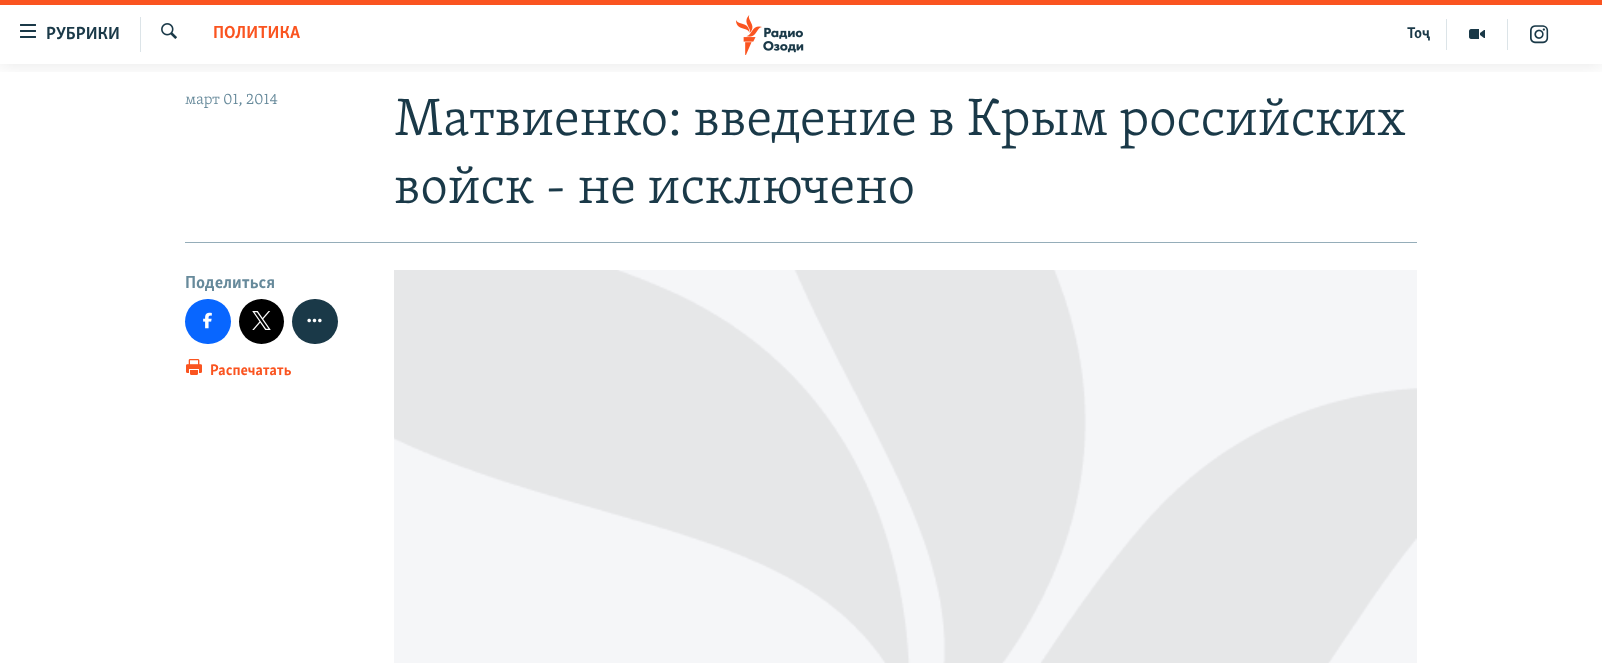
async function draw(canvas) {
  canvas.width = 1602;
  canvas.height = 663;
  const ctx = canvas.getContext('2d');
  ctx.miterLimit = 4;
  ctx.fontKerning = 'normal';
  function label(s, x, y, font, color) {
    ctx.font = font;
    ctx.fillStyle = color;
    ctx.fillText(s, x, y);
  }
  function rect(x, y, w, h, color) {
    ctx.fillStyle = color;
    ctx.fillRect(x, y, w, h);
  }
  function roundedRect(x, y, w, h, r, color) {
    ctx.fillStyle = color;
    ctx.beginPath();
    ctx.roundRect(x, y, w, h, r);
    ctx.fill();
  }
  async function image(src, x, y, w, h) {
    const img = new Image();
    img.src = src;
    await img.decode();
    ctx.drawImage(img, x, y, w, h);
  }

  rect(0, 0, 1602, 663, '#fff');
  ctx.save();
  ctx.beginPath();
  ctx.rect(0, 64, 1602, 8);
  ctx.clip();
  ctx.fillStyle = '#0000001a';
  ctx.filter = 'blur(10px)';
  ctx.beginPath();
  ctx.rect(0, 0, 1602, 64);
  ctx.fill();
  ctx.filter = 'none';
  ctx.restore();
  rect(0, 0, 1602, 5, '#fa5420');
  await image('assets/img1.png', 20, 24, 16, 14);
  label('РУБРИКИ', 46, 39, 'bold 18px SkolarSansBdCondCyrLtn', '#1a3948');
  rect(140, 17, 1, 35, '#dce4e8');
  await image('assets/img2.png', 161, 23, 16, 16);
  label('ПОЛИТИКА', 213, 38, 'bold 18px SkolarSansBdCondCyrLtn', '#fa5420');
  await image('assets/img3.png', 736, 15, 68, 40);
  rect(1446, 19, 1, 31, '#dce4e8');
  label('Тоҷ', 1407, 38, 'bold 16px SkolarSansBdCondCyrLtn', '#1a3948');
  rect(1507, 19, 1, 31, '#dce4e8');
  await image('assets/img4.png', 1469, 29, 16, 10);
  await image('assets/img5.png', 1530, 25, 19, 19);
  label('март 01, 2014', 185, 104, '300 15.75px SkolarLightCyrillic', '#678a9b');
  label('Матвиенко: введение в Крым российских', 394, 135, '300 54px SkolarLightCyrillic', '#1a3948');
  label('войск - не исключено', 394, 203, '300 54px SkolarLightCyrillic', '#1a3948');
  rect(185, 242, 1232, 1, '#95adb9');
  label('Поделиться', 185, 288, 'bold 18px SkolarSansBdCondCyrLtn', '#678a9b');
  roundedRect(185, 299, 46, 45, 22.5, '#0866ff');
  await image('assets/img6.png', 203, 312, 9, 17);
  ctx.fillStyle = '#000';
  ctx.beginPath();
  ctx.arc(261.5, 321.5, 22.5, 0, 2 * Math.PI);
  ctx.fill();
  await image('assets/img7.png', 252, 311, 19, 19);
  roundedRect(292, 299, 46, 45, 22.5, '#1a3948');
  await image('assets/img8.png', 307, 318, 15, 5);
  await image('assets/img9.png', 186, 359, 16, 16);
  label('Распечатать', 210, 375, 'bold 15.75px SkolarSansBdCondCyrLtn', '#fa5420');
  await image('assets/img10.png', 394, 270, 1023, 393);
}

draw(document.querySelector('canvas'));
